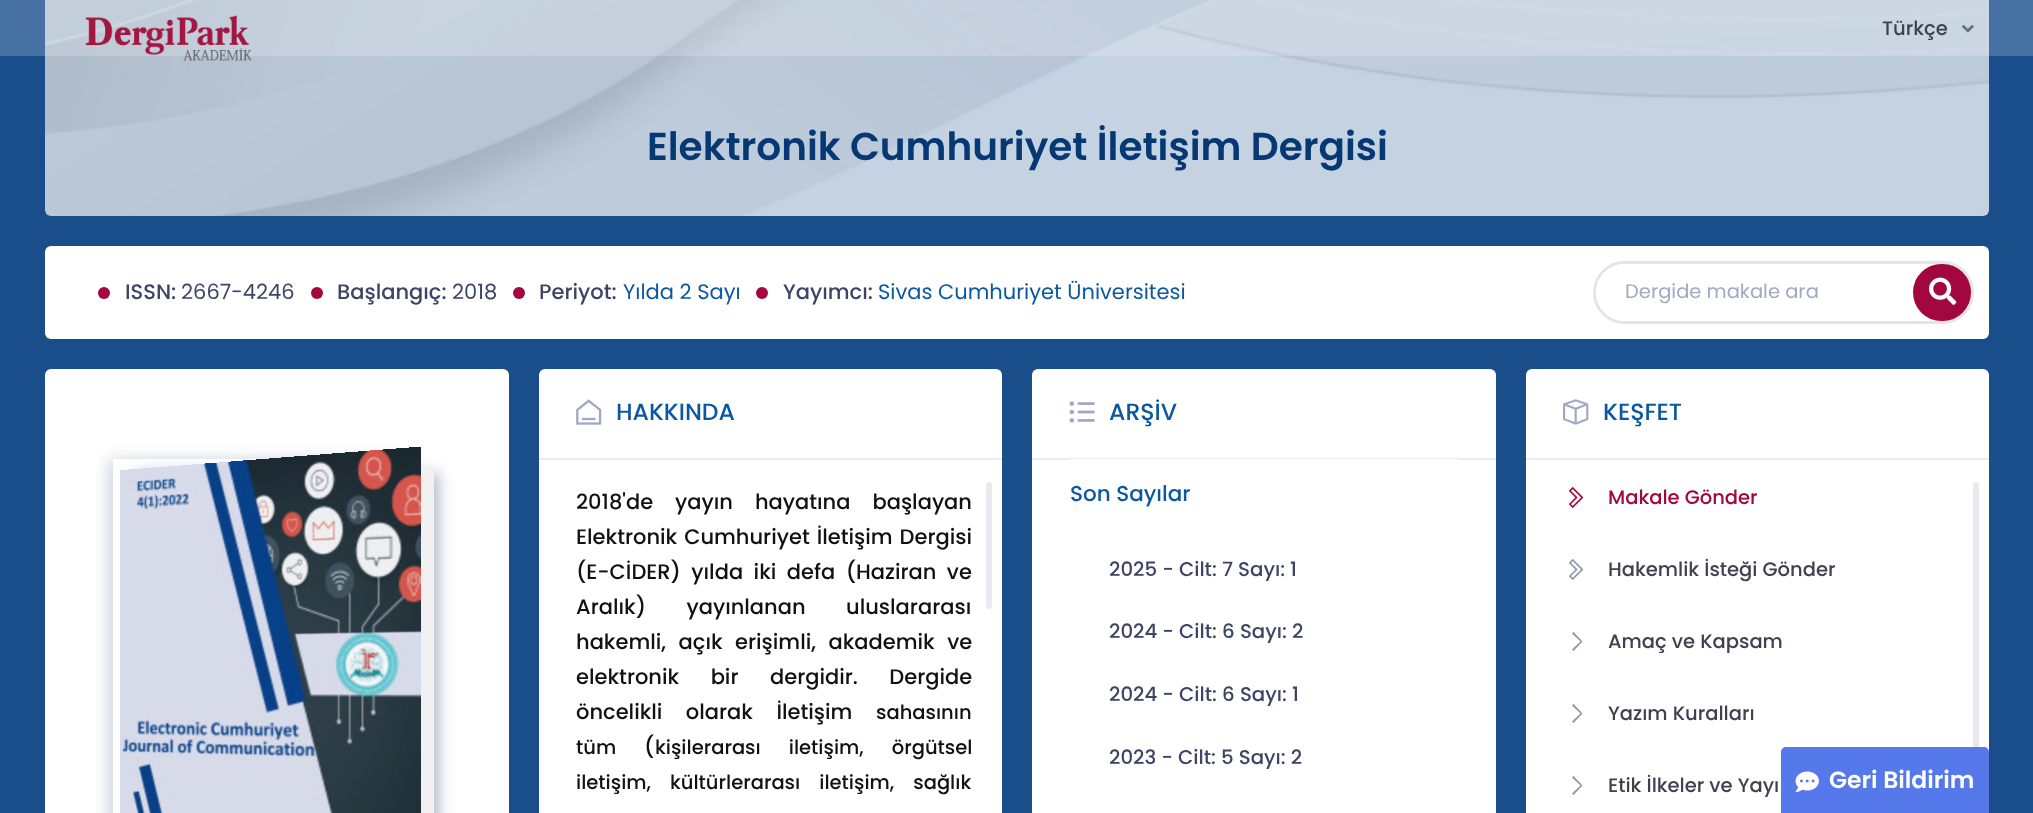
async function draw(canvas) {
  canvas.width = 2033;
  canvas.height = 813;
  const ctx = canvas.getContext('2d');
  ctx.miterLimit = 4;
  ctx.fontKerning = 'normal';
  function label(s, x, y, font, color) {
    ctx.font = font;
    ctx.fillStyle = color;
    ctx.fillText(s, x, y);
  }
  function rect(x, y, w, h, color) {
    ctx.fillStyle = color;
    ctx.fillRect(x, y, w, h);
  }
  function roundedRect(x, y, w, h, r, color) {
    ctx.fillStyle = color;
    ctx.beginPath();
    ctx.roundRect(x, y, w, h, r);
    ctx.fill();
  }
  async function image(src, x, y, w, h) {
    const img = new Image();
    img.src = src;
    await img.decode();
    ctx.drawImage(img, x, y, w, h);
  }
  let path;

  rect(0, 0, 2033, 813, '#194e8b');
  await image('assets/img3.png', 45, 0, 1944, 216);
  rect(0, 0, 2033, 56, '#ffffff33');
  await image('assets/img1.png', 85, 15, 167, 46);
  label('Türkçe', 1882, 35, '500 19.5px Poppins', '#404050');
  await image('assets/img2.png', 1962, 25, 12, 8);
  label('Elektronik Cumhuriyet İletişim Dergisi', 647, 160, '600 39px Poppins', '#063973');
  roundedRect(45, 246, 1944, 93, 6, '#fff');
  ctx.fillStyle = '#a2083d';
  ctx.beginPath();
  ctx.arc(104, 293, 6, 0, 2 * Math.PI);
  ctx.fill();
  label('ISSN:', 125, 299, '500 21px Poppins', '#3d4465');
  label('2667-4246', 181, 299, '21px Poppins', '#3d4465');
  ctx.fillStyle = '#a2083d';
  ctx.beginPath();
  ctx.arc(317, 293, 6, 0, 2 * Math.PI);
  ctx.fill();
  label('Başlangıç:', 337, 299, '500 21px Poppins', '#3d4465');
  label('2018', 452, 299, '21px Poppins', '#3d4465');
  ctx.fillStyle = '#a2083d';
  ctx.beginPath();
  ctx.arc(519, 293, 6, 0, 2 * Math.PI);
  ctx.fill();
  label('Periyot:', 539, 299, '500 21px Poppins', '#3d4465');
  label('Yılda 2 Sayı', 623, 299, '21px Poppins', '#0b58a2');
  ctx.fillStyle = '#a2083d';
  ctx.beginPath();
  ctx.arc(762, 293, 6, 0, 2 * Math.PI);
  ctx.fill();
  label('Yayımcı:', 783, 299, '500 21px Poppins', '#3d4465');
  label('Sivas Cumhuriyet Üniversitesi', 878, 299, '21px Poppins', '#0b58a2');
  ctx.beginPath();
  ctx.roundRect(1594.5, 262.5, 378, 60, 30);
  ctx.strokeStyle = '#e5e5e5';
  ctx.lineWidth = 3;
  ctx.stroke();
  roundedRect(1596, 264, 309, 57, 28.5, '#fff');
  label('Dergide makale ara', 1625, 298, '19.5px Poppins', '#a1a8c3');
  ctx.fillStyle = '#a2083d';
  ctx.beginPath();
  ctx.roundRect(1914, 265, 56, 55, 27.5);
  ctx.fill();
  ctx.strokeStyle = '#a2083d';
  ctx.lineWidth = 2;
  ctx.stroke();
  await image('assets/img4.png', 1929, 277, 28, 28);
  roundedRect(45, 369, 464, 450, 6, '#fff');
  ctx.fillStyle = '#a9b2c5';
  ctx.filter = 'blur(7.5px)';
  ctx.beginPath();
  ctx.rect(138, 473, 300, 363);
  ctx.fill();
  ctx.filter = 'none';
  rect(135, 468, 299, 345, '#f1f1f1');
  ctx.save();
  path = new Path2D('M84 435H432V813H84ZM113 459H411V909H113Z');
  ctx.clip(path, 'evenodd');
  ctx.fillStyle = '#d2d5df';
  ctx.filter = 'blur(7.5px)';
  ctx.beginPath();
  ctx.rect(108, 459, 300, 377);
  ctx.fill();
  ctx.filter = 'none';
  ctx.restore();
  await image('assets/img5.png', 120, 447, 301, 366);
  roundedRect(539, 369, 463, 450, 6, '#fff');
  rect(539, 458, 463, 2, '#ebedf2');
  await image('assets/img6.png', 576, 399, 26, 26);
  label('HAKKINDA', 616, 420, '500 23.5px Poppins', '#0b58a2');
  ctx.wordSpacing = '16.5px';
  label('2018\'de yayın hayatına başlayan', 576, 509, '500 21px Poppins', '#111');
  ctx.wordSpacing = '1.5px';
  label('Elektronik Cumhuriyet İletişim Dergisi', 576, 544, '500 21px Poppins', '#111');
  ctx.wordSpacing = '5px';
  label('(E-CİDER) yılda iki defa (Haziran ve', 576, 579, '500 21px Poppins', '#111');
  ctx.wordSpacing = '35px';
  label('Aralık) yayınlanan uluslararası', 576, 614, '500 21px Poppins', '#111');
  ctx.wordSpacing = '7px';
  label('hakemli, açık erişimli, akademik ve', 576, 649, '500 21px Poppins', '#111');
  ctx.wordSpacing = '26px';
  label('elektronik bir dergidir. Dergide', 576, 684, '500 21px Poppins', '#111');
  ctx.wordSpacing = '18px';
  label('öncelikli olarak İletişim', 576, 719, '500 21px Poppins', '#111');
  ctx.wordSpacing = '0px';
  label('sahasının', 876, 719, '500 19.5px Poppins', '#111');
  label('tüm', 576, 754, '500 19.5px Poppins', '#111');
  label('(', 644, 754, '500 21px Poppins', '#111');
  ctx.wordSpacing = '23px';
  label('kişilerarası iletişim, örgütsel', 655, 754, '500 19.5px Poppins', '#111');
  ctx.wordSpacing = '14px';
  label('iletişim, kültürlerarası iletişim, sağlık', 576, 789, '500 19.5px Poppins', '#111');
  roundedRect(986, 482, 6, 127, 3, '#e8eaf0');
  roundedRect(1032, 369, 464, 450, 6, '#fff');
  rect(1032, 458, 464, 2, '#ebedf2');
  await image('assets/img7.png', 1069, 401, 26, 22);
  ctx.wordSpacing = '0px';
  label('ARŞİV', 1109, 420, '500 23.5px Poppins', '#0b58a2');
  rect(1070, 459, 388, 1, '#fff');
  label('Son Sayılar', 1070, 501, '500 21.5px Poppins', '#0b58a2');
  label('2025 - Cilt: 7 Sayı: 1', 1109, 576, '500 19.75px Poppins', '#3d4465');
  label('2024 - Cilt: 6 Sayı: 2', 1109, 638, '500 19.75px Poppins', '#3d4465');
  label('2024 - Cilt: 6 Sayı: 1', 1109, 701, '500 19.75px Poppins', '#3d4465');
  label('2023 - Cilt: 5 Sayı: 2', 1109, 764, '500 19.75px Poppins', '#3d4465');
  roundedRect(1526, 369, 463, 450, 6, '#fff');
  rect(1526, 458, 463, 2, '#ebedf2');
  await image('assets/img8.png', 1563, 399, 26, 26);
  label('KEŞFET', 1603, 420, '500 23.5px Poppins', '#0b58a2');
  await image('assets/img9.png', 1568, 487, 16, 21);
  label('Makale Gönder', 1608, 504, '500 19.5px Poppins', '#a2083d');
  await image('assets/img10.png', 1568, 559, 16, 21);
  label('Hakemlik İsteği Gönder', 1608, 576, '500 19.5px Poppins', '#404050');
  ctx.fillStyle = '#8e94ac';
  path = new Path2D('M1573.5 632L1582.5 641.5L1573.5 651L1572 649.5L1580.5 641.5L1572 633.5Z');
  ctx.fill(path);
  label('Amaç ve Kapsam', 1608, 648, '500 19.5px Poppins', '#404050');
  ctx.fillStyle = '#8e94ac';
  path = new Path2D('M1573.5 704L1582.5 713.5L1573.5 723L1572 721.5L1580.5 713.5L1572 705.5Z');
  ctx.fill(path);
  label('Yazım Kuralları', 1608, 720, '500 19.5px Poppins', '#404050');
  ctx.fillStyle = '#8e94ac';
  path = new Path2D('M1573.5 776L1582.5 785.5L1573.5 795L1572 793.5L1580.5 785.5L1572 777.5Z');
  ctx.fill(path);
  label('Etik İlkeler ve Yayı', 1608, 792, '500 19.5px Poppins', '#404050');
  roundedRect(1973, 482, 6, 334, 3, '#e8eaf0');
  ctx.fillStyle = '#5578eb';
  ctx.beginPath();
  ctx.roundRect(1782, 748, 206, 64, [4, 4, 0, 0]);
  ctx.fill();
  ctx.strokeStyle = '#5578eb';
  ctx.stroke();
  await image('assets/img11.png', 1795, 771, 24, 21);
  label('Geri Bildirim', 1829, 788, '600 23.5px Poppins', '#fff');
}

draw(document.querySelector('canvas'));
